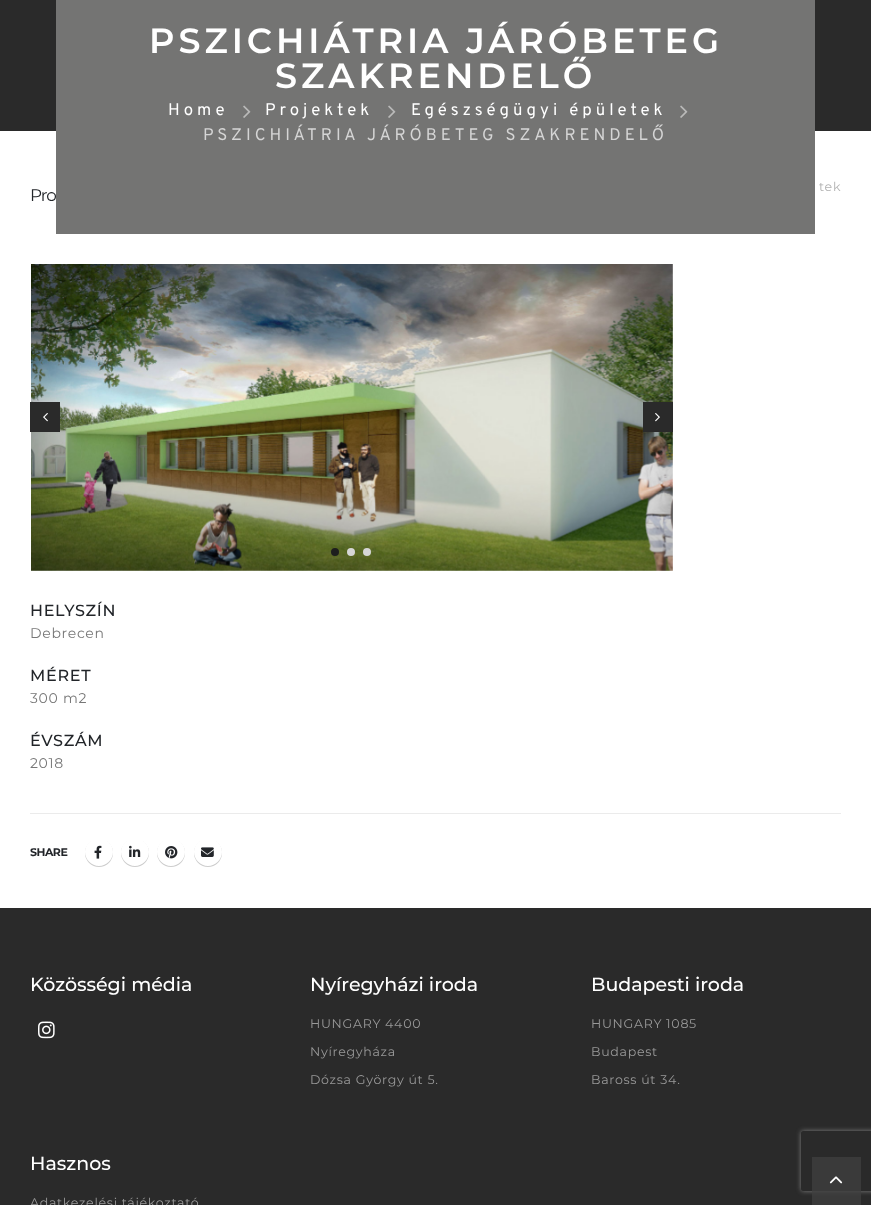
async function draw(canvas) {
  canvas.width = 871;
  canvas.height = 1205;
  const ctx = canvas.getContext('2d');
  ctx.miterLimit = 4;
  ctx.fontKerning = 'normal';
  function label(s, x, y, font, color) {
    ctx.font = font;
    ctx.fillStyle = color;
    ctx.fillText(s, x, y);
  }
  function rect(x, y, w, h, color) {
    ctx.fillStyle = color;
    ctx.fillRect(x, y, w, h);
  }
  async function image(src, x, y, w, h) {
    const img = new Image();
    img.src = src;
    await img.decode();
    ctx.drawImage(img, x, y, w, h);
  }
  let path;

  rect(0, 0, 871, 1205, '#fff');
  rect(0, 0, 871, 131, '#2a2a2a');
  ctx.letterSpacing = '-1px';
  label('Pro', 30, 201, '16.8px Montserrat', '#222529');
  rect(56, 0, 759, 234, '#747473');
  ctx.letterSpacing = '4px';
  label('PSZICHIÁTRIA JÁRÓBETEG', 149, 53, '600 35px Montserrat', '#fff');
  label('SZAKRENDELŐ', 275, 88, '600 35px Montserrat', '#fff');
  label('Home', 168, 115, '16.8px Overpass', '#fff');
  await image('assets/img1.png', 243, 105, 8, 13);
  label('Projektek', 265, 115, '16.8px Overpass', '#fff');
  await image('assets/img1.png', 388, 105, 8, 13);
  label('Egészségügyi épületek', 411, 115, '16.8px Overpass', '#fff');
  await image('assets/img1.png', 680, 105, 8, 13);
  label('PSZICHIÁTRIA JÁRÓBETEG SZAKRENDELŐ', 203, 140, '16.8px Overpass', '#d5d5d5');
  ctx.letterSpacing = '0.7px';
  label('tek', 819, 191, '12.6px Montserrat', '#b1b1b1');
  await image('assets/img2.png', 31, 264, 642, 307);
  rect(30, 402, 30, 30, '#2a2a2a');
  await image('assets/img3.png', 43, 413, 5, 9);
  rect(643, 402, 30, 30, '#2a2a2a');
  await image('assets/img4.png', 655, 413, 5, 9);
  ctx.fillStyle = '#1e1e1e';
  ctx.beginPath();
  ctx.arc(335, 552, 4, 0, 2 * Math.PI);
  ctx.fill();
  ctx.fillStyle = '#d6d6d6';
  ctx.beginPath();
  ctx.arc(351, 552, 4, 0, 2 * Math.PI);
  ctx.fill();
  ctx.beginPath();
  ctx.arc(367, 552, 4, 0, 2 * Math.PI);
  ctx.fill();
  label('HELYSZÍN', 30, 616, '500 16px Montserrat', '#222529');
  label('Debrecen', 30, 638, '14px Montserrat', '#777');
  label('MÉRET', 30, 681, '500 16px Montserrat', '#222529');
  label('300 m2', 30, 703, '14px Montserrat', '#777');
  label('ÉVSZÁM', 30, 746, '500 16px Montserrat', '#222529');
  label('2018', 30, 768, '14px Montserrat', '#777');
  rect(30, 813, 811, 1, '#ebebeb');
  ctx.letterSpacing = '-0.5px';
  label('SHARE', 30, 856, 'bold 11px Montserrat', '#222529');
  ctx.save();
  path = new Path2D('M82 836H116V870H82ZM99 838C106.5 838 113 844.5 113 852C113 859.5 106.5 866 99 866C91.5 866 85 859.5 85 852C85 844.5 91.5 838 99 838Z');
  ctx.clip(path, 'evenodd');
  ctx.fillStyle = '#00000033';
  ctx.filter = 'blur(0.5px)';
  ctx.beginPath();
  ctx.roundRect(85, 839, 28, 28, 14);
  ctx.fill();
  ctx.filter = 'none';
  ctx.restore();
  await image('assets/img5.png', 94, 845, 8, 14);
  ctx.save();
  path = new Path2D('M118 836H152V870H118ZM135 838C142.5 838 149 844.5 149 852C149 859.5 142.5 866 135 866C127.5 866 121 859.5 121 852C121 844.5 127.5 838 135 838Z');
  ctx.clip(path, 'evenodd');
  ctx.fillStyle = '#00000033';
  ctx.filter = 'blur(0.5px)';
  ctx.beginPath();
  ctx.roundRect(121, 839, 28, 28, 14);
  ctx.fill();
  ctx.filter = 'none';
  ctx.restore();
  await image('assets/img6.png', 129, 845, 12, 12);
  ctx.save();
  path = new Path2D('M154 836H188V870H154ZM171 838C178.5 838 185 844.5 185 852C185 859.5 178.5 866 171 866C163.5 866 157 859.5 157 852C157 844.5 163.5 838 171 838Z');
  ctx.clip(path, 'evenodd');
  ctx.fillStyle = '#00000033';
  ctx.filter = 'blur(0.5px)';
  ctx.beginPath();
  ctx.roundRect(157, 839, 28, 28, 14);
  ctx.fill();
  ctx.filter = 'none';
  ctx.restore();
  await image('assets/img7.png', 165, 846, 13, 13);
  ctx.save();
  path = new Path2D('M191 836H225V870H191ZM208 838C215.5 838 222 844.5 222 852C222 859.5 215.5 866 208 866C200.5 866 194 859.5 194 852C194 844.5 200.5 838 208 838Z');
  ctx.clip(path, 'evenodd');
  ctx.fillStyle = '#00000033';
  ctx.filter = 'blur(0.5px)';
  ctx.beginPath();
  ctx.roundRect(194, 839, 28, 28, 14);
  ctx.fill();
  ctx.filter = 'none';
  ctx.restore();
  await image('assets/img8.png', 201, 847, 13, 10);
  rect(0, 908, 871, 297, '#2a2a2a');
  ctx.letterSpacing = '0px';
  label('Közösségi média', 30, 991, '500 19px Montserrat', '#fff');
  await image('assets/img9.png', 38, 1021, 17, 18);
  label('Nyíregyházi iroda', 310, 991, '500 19px Montserrat', '#fff');
  ctx.letterSpacing = '0.7px';
  label('HUNGARY 4400', 310, 1028, '12.6px Montserrat', '#999');
  label('Nyíregyháza', 310, 1056, '12.6px Montserrat', '#999');
  label('Dózsa György út 5.', 310, 1084, '12.6px Montserrat', '#999');
  ctx.letterSpacing = '0px';
  label('Budapesti iroda', 591, 991, '500 19px Montserrat', '#fff');
  ctx.letterSpacing = '0.7px';
  label('HUNGARY 1085', 591, 1028, '12.6px Montserrat', '#999');
  label('Budapest', 591, 1056, '12.6px Montserrat', '#999');
  label('Baross út 34.', 591, 1084, '12.6px Montserrat', '#999');
  ctx.letterSpacing = '0px';
  label('Hasznos', 30, 1170, '500 19px Montserrat', '#fff');
  ctx.letterSpacing = '0.7px';
  label('Adatkezelési tájékoztató', 30, 1207, '12.6px Montserrat', '#999');
  ctx.save();
  path = new Path2D('M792 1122H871V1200H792ZM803 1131H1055C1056 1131 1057 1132 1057 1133V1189C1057 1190 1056 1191 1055 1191H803C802 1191 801 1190 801 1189V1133C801 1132 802 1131 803 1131Z');
  ctx.clip(path, 'evenodd');
  ctx.fillStyle = '#808080';
  ctx.filter = 'blur(2.5px)';
  ctx.beginPath();
  ctx.roundRect(801, 1131, 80, 60, 2);
  ctx.fill();
  ctx.filter = 'none';
  ctx.restore();
  rect(812, 1157, 49, 48, '#404040bf');
  await image('assets/img10.png', 829, 1176, 14, 8);
}

draw(document.querySelector('canvas'));
